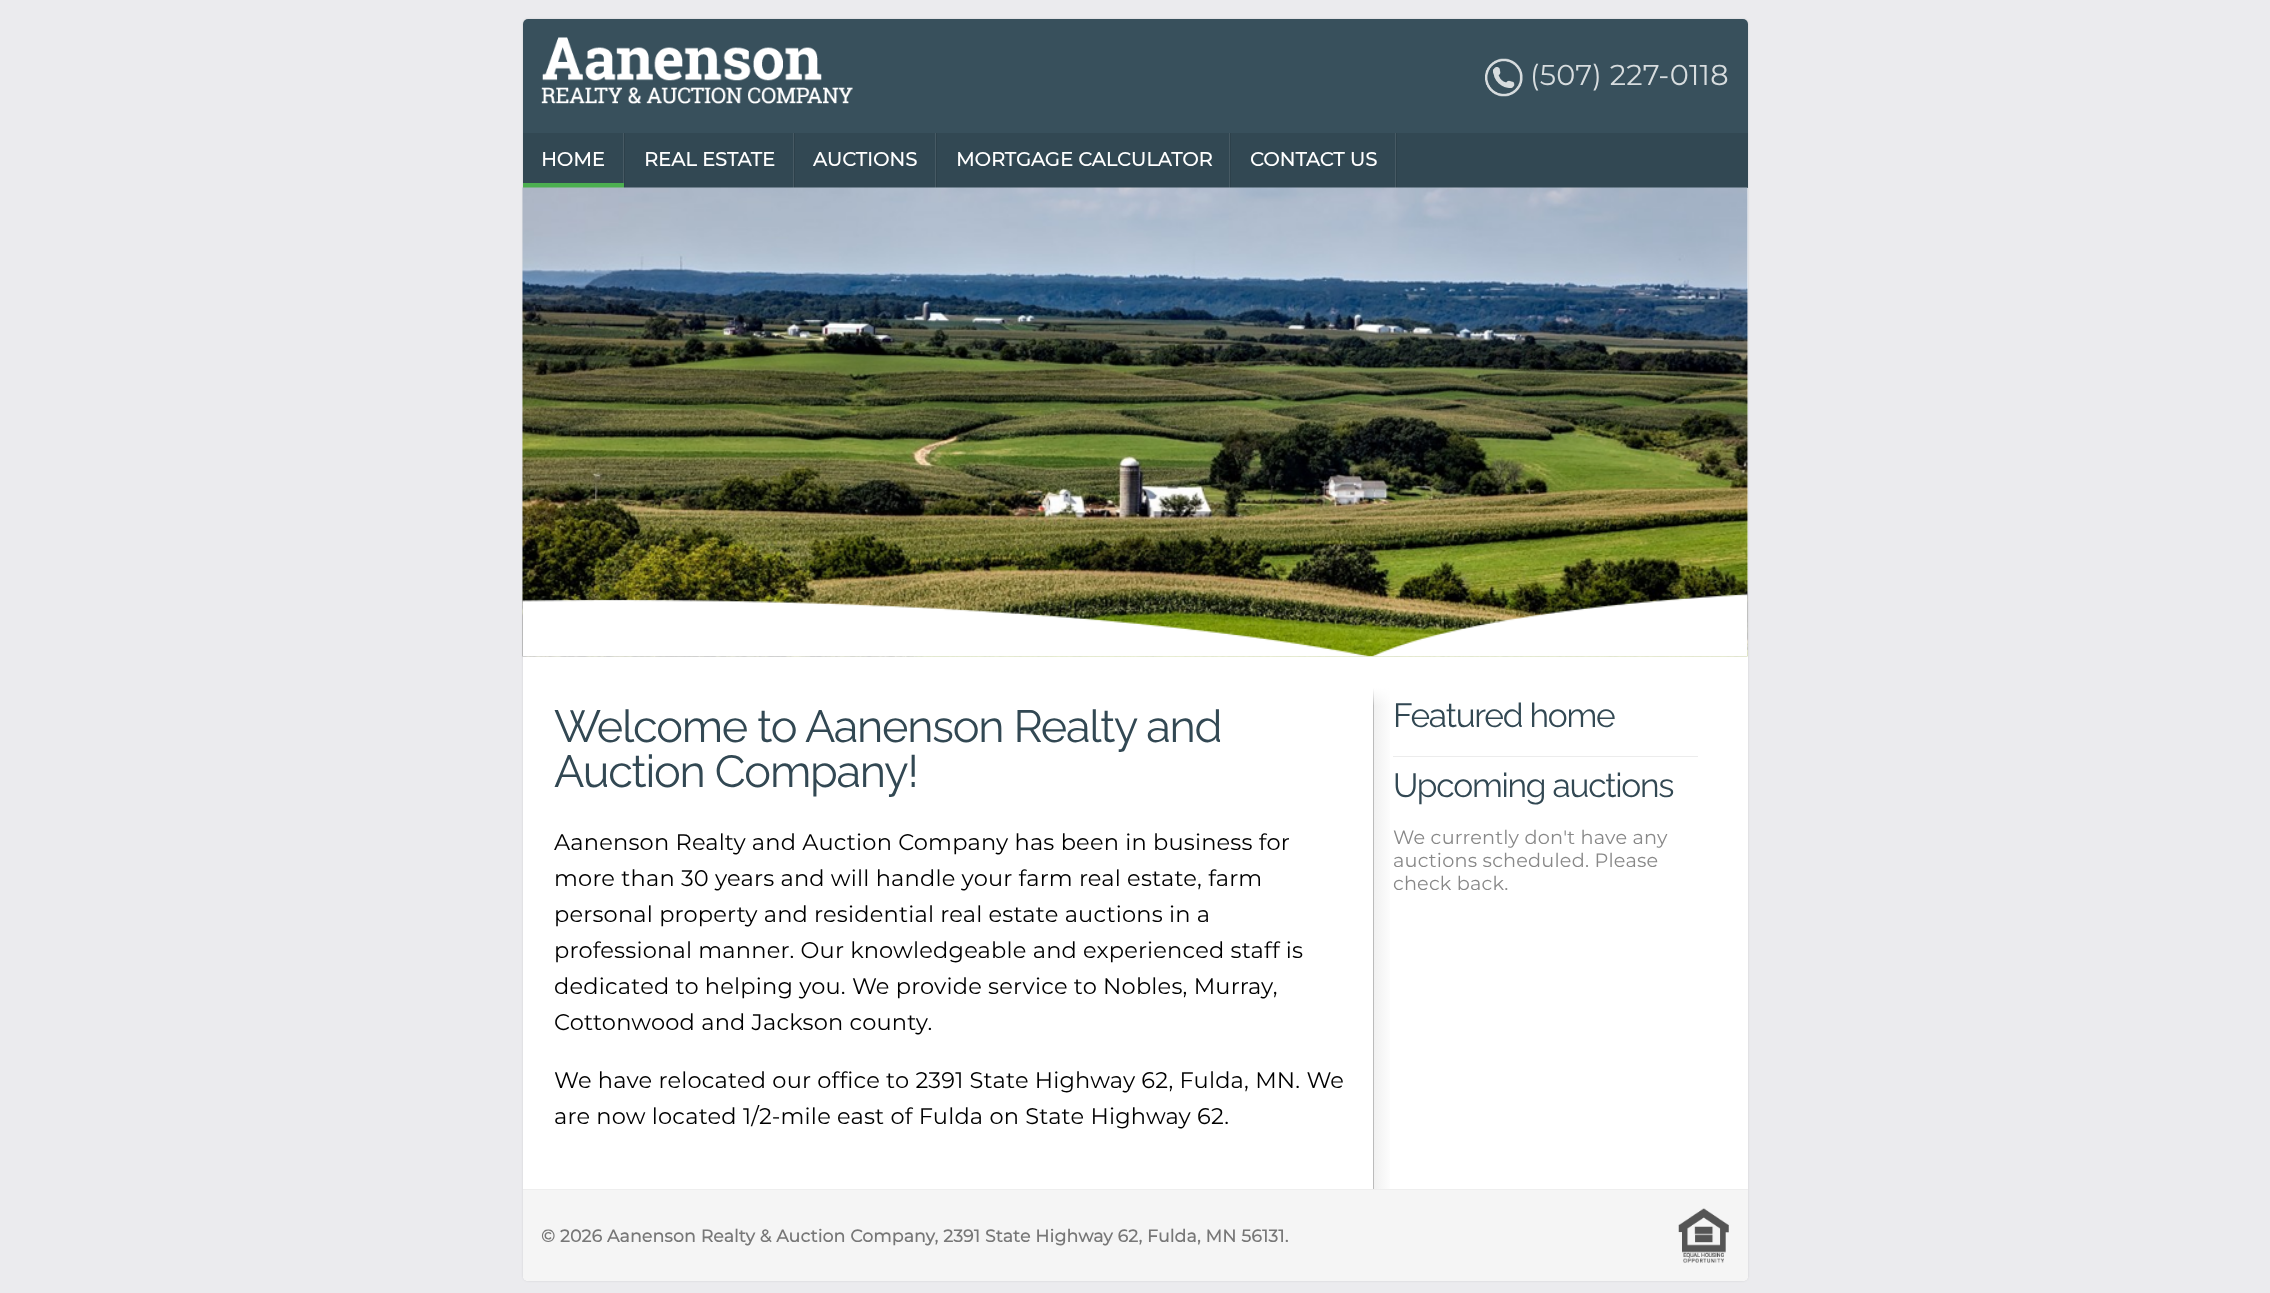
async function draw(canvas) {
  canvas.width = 2270;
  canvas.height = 1293;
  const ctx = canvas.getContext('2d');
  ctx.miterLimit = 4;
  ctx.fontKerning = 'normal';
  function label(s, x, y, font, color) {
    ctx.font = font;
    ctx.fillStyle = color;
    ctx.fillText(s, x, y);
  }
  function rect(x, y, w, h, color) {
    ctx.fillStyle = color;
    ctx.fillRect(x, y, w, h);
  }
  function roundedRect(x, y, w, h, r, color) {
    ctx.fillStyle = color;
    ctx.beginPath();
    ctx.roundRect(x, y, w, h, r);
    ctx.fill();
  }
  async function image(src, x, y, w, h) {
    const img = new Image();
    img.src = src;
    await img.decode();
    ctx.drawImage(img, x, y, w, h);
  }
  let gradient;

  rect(0, 0, 2270, 1293, '#ebebee');
  ctx.fillStyle = '#0000001a';
  ctx.filter = 'blur(1px)';
  ctx.beginPath();
  ctx.roundRect(523, 19, 1225, 1262, 5);
  ctx.fill();
  ctx.filter = 'none';
  roundedRect(523, 19, 1225, 1262, 5, '#fff');
  ctx.fillStyle = '#38505c';
  ctx.beginPath();
  ctx.roundRect(523, 19, 1225, 169, [5, 5, 0, 0]);
  ctx.fill();
  await image('assets/img1.png', 541, 37, 312, 67);
  await image('assets/img2.png', 1485, 58, 38, 39);
  ctx.letterSpacing = '0.2px';
  label('(507) 227-0118', 1530, 85, '100 28.75px Montserrat', '#d7dcde');
  rect(523, 133, 1225, 55, '#324853');
  rect(623, 133, 1, 55, '#475a64');
  rect(624, 133, 1, 55, '#2d414b');
  label('HOME', 541, 166, 'bold 19.25px Montserrat', '#fff');
  rect(523, 183, 101, 5, '#4caf50');
  rect(793, 133, 1, 55, '#475a64');
  rect(794, 133, 1, 55, '#2d414b');
  label('REAL ESTATE', 644, 166, 'bold 19.25px Montserrat', '#fff');
  rect(935, 133, 1, 55, '#475a64');
  rect(936, 133, 1, 55, '#2d414b');
  label('AUCTIONS', 813, 166, 'bold 19.25px Montserrat', '#fff');
  rect(1229, 133, 1, 55, '#475a64');
  rect(1230, 133, 1, 55, '#2d414b');
  label('MORTGAGE CALCULATOR', 956, 166, 'bold 19.25px Montserrat', '#fff');
  rect(1395, 133, 1, 55, '#475a64');
  rect(1396, 133, 1, 55, '#2d414b');
  label('CONTACT US', 1250, 166, 'bold 19.25px Montserrat', '#fff');
  await image('assets/img3.png', 522, 187, 1226, 470);
  await image('assets/img4.png', 522, 593, 1226, 64);
  ctx.letterSpacing = '-1.25px';
  label('Welcome to Aanenson Realty and', 554, 742, '100 45px Raleway', '#324853');
  label('Auction Company!', 554, 787, '100 45px Raleway', '#324853');
  ctx.letterSpacing = '0.2px';
  label('Aanenson Realty and Auction Company has been in business for', 554, 850, '100 22.5px Montserrat', '#000');
  label('more than 30 years and will handle your farm real estate, farm', 554, 886, '100 22.5px Montserrat', '#000');
  label('personal property and residential real estate auctions in a', 554, 922, '100 22.5px Montserrat', '#000');
  label('professional manner. Our knowledgeable and experienced staff is', 554, 958, '100 22.5px Montserrat', '#000');
  label('dedicated to helping you. We provide service to Nobles, Murray,', 554, 994, '100 22.5px Montserrat', '#000');
  label('Cottonwood and Jackson county.', 554, 1030, '100 22.5px Montserrat', '#000');
  label('We have relocated our office to 2391 State Highway 62, Fulda, MN. We', 554, 1088, '100 22.5px Montserrat', '#000');
  label('are now located 1/2-mile east of Fulda on State Highway 62.', 554, 1124, '100 22.5px Montserrat', '#000');
  rect(1373, 688, 1, 501, '#bbb');
  gradient = ctx.createLinearGradient(1374, 938, 1393, 938);
  gradient.addColorStop(0, '#f1f1f1');
  gradient.addColorStop(1, '#fff');
  ctx.fillStyle = gradient;
  ctx.fillRect(1374, 688, 16, 501);
  gradient = ctx.createLinearGradient(1382, 688, 1382, 706);
  gradient.addColorStop(0, '#fff');
  gradient.addColorStop(1, '#ffffff00');
  ctx.fillStyle = gradient;
  ctx.fillRect(1373, 688, 17, 17);
  ctx.letterSpacing = '-1.25px';
  label('Featured home', 1393, 727, '100 33.5px Raleway', '#324853');
  rect(1393, 756, 305, 1, '#ececec');
  label('Upcoming auctions', 1393, 797, '100 33.5px Raleway', '#324853');
  ctx.letterSpacing = '0.2px';
  label('We currently don\'t have any', 1393, 844, '100 19.25px Montserrat', '#888');
  label('auctions scheduled. Please', 1393, 867, '100 19.25px Montserrat', '#888');
  label('check back.', 1393, 890, '100 19.25px Montserrat', '#888');
  ctx.fillStyle = '#f5f5f5';
  ctx.beginPath();
  ctx.roundRect(523, 1189, 1225, 92, [0, 0, 5, 5]);
  ctx.fill();
  rect(523, 1189, 1225, 1, '#eee');
  label('© 2026 Aanenson Realty & Auction Company, 2391 State Highway 62, Fulda, MN 56131.', 541, 1242, 'bold 17.3px Montserrat', '#777');
  await image('assets/img5.png', 1678, 1208, 51, 55);
}

draw(document.querySelector('canvas'));
